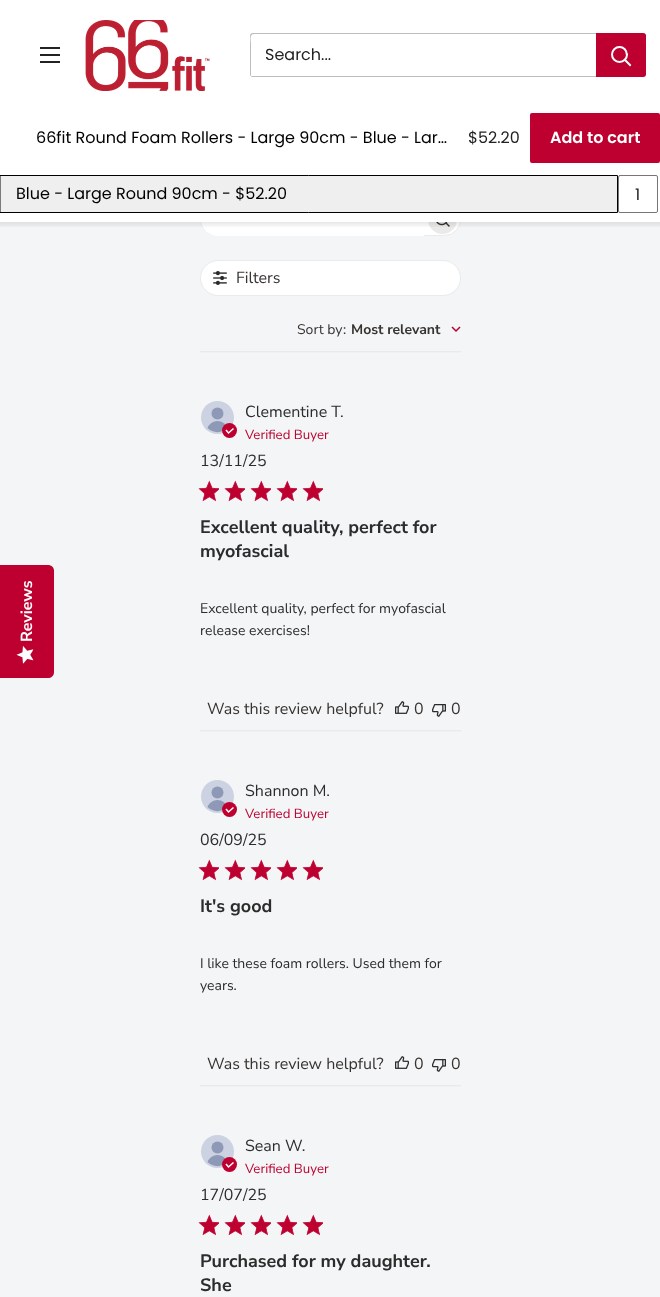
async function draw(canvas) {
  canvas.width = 660;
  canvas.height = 1297;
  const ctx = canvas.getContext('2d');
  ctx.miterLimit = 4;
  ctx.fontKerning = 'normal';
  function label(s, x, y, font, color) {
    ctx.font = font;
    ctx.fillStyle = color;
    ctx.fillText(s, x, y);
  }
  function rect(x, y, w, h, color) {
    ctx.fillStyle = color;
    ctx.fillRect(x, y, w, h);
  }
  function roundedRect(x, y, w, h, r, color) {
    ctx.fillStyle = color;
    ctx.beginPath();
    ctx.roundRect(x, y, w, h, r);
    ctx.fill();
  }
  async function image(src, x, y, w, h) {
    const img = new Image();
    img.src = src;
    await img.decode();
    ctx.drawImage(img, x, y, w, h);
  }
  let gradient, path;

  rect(0, 0, 660, 1297, '#f3f5f6');
  ctx.fillStyle = '#fff';
  ctx.beginPath();
  ctx.roundRect(200.5, 203.5, 260, 32, 16);
  ctx.fill();
  ctx.strokeStyle = '#eaeaea';
  ctx.stroke();
  ctx.beginPath();
  ctx.roundRect(201, 203, 223, 33, [16.5, 0, 0, 16.5]);
  ctx.fill();
  ctx.fillStyle = '#eaeaea';
  ctx.beginPath();
  ctx.arc(442.5, 219.5, 14.5, 0, 2 * Math.PI);
  ctx.fill();
  rect(0, 0, 660, 222, '#fff');
  await image('assets/img1.png', 40, 47, 20, 16);
  await image('assets/img2.png', 85, 20, 125, 71);
  ctx.fillStyle = '#bdbdbd';
  path = new Path2D('M251 76C251 77 252 77 253 77H643C645 77 646 76 646 74V36C646 35 646 34 645 34V67C645 69 647 76 642 76Z');
  ctx.fill(path);
  path = new Path2D('M254 34H645C645 33 644 33 643 33H253C251 33 250 34 250 36V74C250 75 250 76 251 76V43C251 41 249 34 254 34Z');
  ctx.fill(path);
  label('Search...', 265, 60, '16px Poppins', '#222');
  ctx.fillStyle = '#bd002f';
  ctx.beginPath();
  ctx.roundRect(596, 33, 50, 44, [0, 3, 3, 0]);
  ctx.fill();
  path = new Path2D('M630 65L625 60');
  ctx.strokeStyle = '#fff';
  ctx.lineWidth = 2;
  ctx.lineCap = 'square';
  ctx.stroke(path);
  ctx.beginPath();
  ctx.arc(619.5, 54.5, 7.5, 0, 2 * Math.PI);
  ctx.stroke();
  label('66fit Round Foam Rollers - Large 90cm - Blue - Lar…', 36, 143, '16px Poppins', '#000');
  label('$52.20', 468, 143, '16px Poppins', '#222');
  roundedRect(530, 113, 130, 50, 2, '#bd002f');
  label('Add to cart', 550, 143, '600 16px Poppins', '#fff');
  ctx.fillStyle = '#efefef';
  ctx.beginPath();
  ctx.rect(0.5, 175.5, 617, 37);
  ctx.fill();
  ctx.strokeStyle = '#000';
  ctx.lineWidth = 1;
  ctx.stroke();
  label('Blue - Large Round 90cm - $52.20', 16, 199, '16px Poppins', '#000');
  ctx.beginPath();
  ctx.roundRect(618.5, 175.5, 39, 37, 1.5);
  ctx.strokeStyle = '#767676';
  ctx.stroke();
  label('1', 635, 200, '16px Poppins', '#222');
  await image('assets/img4.png', 436, 222, 14, 5);
  gradient = ctx.createLinearGradient(330, 222, 330, 229);
  gradient.addColorStop(0, '#00000017');
  gradient.addColorStop(1, '#00000000');
  ctx.fillStyle = gradient;
  ctx.fillRect(0, 222, 660, 5);
  ctx.fillStyle = '#bd002f';
  path = new Path2D('M0 678V565H48C51 565 54 567 54 571V672C54 676 51 678 48 678Z');
  ctx.fill(path);
  ctx.font = '200 16px "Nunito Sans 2"';
  ctx.fillStyle = '#fff';
  ctx.save();
  ctx.translate(32, 642);
  ctx.rotate(-90 * Math.PI / 180);
  ctx.fillText('Reviews', 0, 0);
  ctx.restore();
  await image('assets/img3.png', 16, 646, 18, 18);
  ctx.beginPath();
  ctx.roundRect(200.5, 260.5, 260, 35, 17.5);
  ctx.fill();
  ctx.strokeStyle = '#eaeaea';
  ctx.stroke();
  await image('assets/img5.png', 213, 271, 14, 14);
  label('Filters', 236, 283, '200 16px Nunito Sans', '#373330');
  label('Sort by', 297, 334, '200 14px Nunito Sans', '#373330');
  label(':', 343, 334, '200 14px Nunito Sans', '#373330');
  label('Most relevant', 351, 334, '200 14px "Nunito Sans 2"', '#373330');
  path = new Path2D('M452 327L456 331L460 327');
  ctx.strokeStyle = '#bd002f';
  ctx.lineWidth = 1.5;
  ctx.lineCap = 'butt';
  ctx.stroke(path);
  await image('assets/img6.png', 200, 351, 261, 2);
  ctx.fillStyle = '#ccd2e1';
  ctx.beginPath();
  ctx.arc(217.5, 417.5, 16.5, 0, 2 * Math.PI);
  ctx.fill();
  ctx.fillStyle = '#8d99b6';
  ctx.beginPath();
  ctx.arc(217.5, 413.5, 6, 0, 2 * Math.PI);
  ctx.fill();
  path = new Path2D('M217.5 421C222 421 226 424 227.5 428C222 433.5 213 433.5 207.5 428C209 424 213 421 217.5 421Z');
  ctx.fill(path);
  ctx.fillStyle = '#bd002f';
  ctx.beginPath();
  ctx.arc(229.5, 430.5, 7.5, 0, 2 * Math.PI);
  ctx.fill();
  path = new Path2D('M226 430L228.5 433L233.5 428.5');
  ctx.strokeStyle = '#fff';
  ctx.stroke(path);
  label('Clementine T.', 245, 417, '200 16px Nunito Sans', '#2c2c2c');
  label('Verified Buyer', 245, 439, '200 13.25px Nunito Sans', '#bd002f');
  label('13/11/25', 200, 466, '200 16px Nunito Sans', '#2c2c2c');
  await image('assets/img7.png', 198, 480, 21, 22);
  await image('assets/img7.png', 224, 480, 21, 22);
  await image('assets/img7.png', 250, 480, 21, 22);
  await image('assets/img7.png', 276, 480, 21, 22);
  await image('assets/img7.png', 302, 480, 21, 22);
  label('Excellent quality, perfect for', 200, 533, '200 18px "Nunito Sans 2"', '#2c2c2c');
  label('myofascial', 200, 557, '200 18px "Nunito Sans 2"', '#2c2c2c');
  label('Excellent quality, perfect for myofascial', 200, 613, '200 14px Nunito Sans', '#2c2c2c');
  label('release exercises!', 200, 635, '200 14px Nunito Sans', '#2c2c2c');
  label('Was this review helpful?', 207, 714, '200 16px Nunito Sans', '#373330');
  await image('assets/img8.png', 395, 701, 14, 13);
  label('0', 414, 714, '200 16px Nunito Sans', '#373330');
  await image('assets/img9.png', 432, 704, 14, 13);
  label('0', 451, 714, '200 16px Nunito Sans', '#373330');
  await image('assets/img6.png', 200, 730, 261, 2);
  ctx.fillStyle = '#ccd2e1';
  ctx.beginPath();
  ctx.arc(217.5, 796.5, 16.5, 0, 2 * Math.PI);
  ctx.fill();
  ctx.fillStyle = '#8d99b6';
  ctx.beginPath();
  ctx.arc(217.5, 792.5, 6, 0, 2 * Math.PI);
  ctx.fill();
  path = new Path2D('M217.5 800C222 800 226 803 227.5 807C222 812.5 213 812.5 207.5 807C209 803 213 800 217.5 800Z');
  ctx.fill(path);
  ctx.fillStyle = '#bd002f';
  ctx.beginPath();
  ctx.arc(229.5, 809.5, 7.5, 0, 2 * Math.PI);
  ctx.fill();
  path = new Path2D('M226 809L228.5 812L233.5 807.5');
  ctx.stroke(path);
  label('Shannon M.', 245, 796, '200 16px Nunito Sans', '#2c2c2c');
  label('Verified Buyer', 245, 818, '200 13.25px Nunito Sans', '#bd002f');
  label('06/09/25', 200, 845, '200 16px Nunito Sans', '#2c2c2c');
  await image('assets/img7.png', 198, 859, 21, 22);
  await image('assets/img7.png', 224, 859, 21, 22);
  await image('assets/img7.png', 250, 859, 21, 22);
  await image('assets/img7.png', 276, 859, 21, 22);
  await image('assets/img7.png', 302, 859, 21, 22);
  label('It\'s good', 200, 912, '200 18px "Nunito Sans 2"', '#2c2c2c');
  label('I like these foam rollers. Used them for', 200, 968, '200 14px Nunito Sans', '#2c2c2c');
  label('years.', 200, 990, '200 14px Nunito Sans', '#2c2c2c');
  label('Was this review helpful?', 207, 1069, '200 16px Nunito Sans', '#373330');
  await image('assets/img8.png', 395, 1056, 14, 13);
  label('0', 414, 1069, '200 16px Nunito Sans', '#373330');
  await image('assets/img9.png', 432, 1059, 14, 13);
  label('0', 451, 1069, '200 16px Nunito Sans', '#373330');
  await image('assets/img6.png', 200, 1085, 261, 2);
  ctx.fillStyle = '#ccd2e1';
  ctx.beginPath();
  ctx.arc(217.5, 1151.5, 16.5, 0, 2 * Math.PI);
  ctx.fill();
  ctx.fillStyle = '#8d99b6';
  ctx.beginPath();
  ctx.arc(217.5, 1147.5, 6, 0, 2 * Math.PI);
  ctx.fill();
  path = new Path2D('M217.5 1155C222 1155 226 1158 227.5 1162C222 1167.5 213 1167.5 207.5 1162C209 1158 213 1155 217.5 1155Z');
  ctx.fill(path);
  ctx.fillStyle = '#bd002f';
  ctx.beginPath();
  ctx.arc(229.5, 1164.5, 7.5, 0, 2 * Math.PI);
  ctx.fill();
  path = new Path2D('M226 1164L228.5 1167L233.5 1162.5');
  ctx.stroke(path);
  label('Sean W.', 245, 1151, '200 16px Nunito Sans', '#2c2c2c');
  label('Verified Buyer', 245, 1173, '200 13.25px Nunito Sans', '#bd002f');
  label('17/07/25', 200, 1200, '200 16px Nunito Sans', '#2c2c2c');
  await image('assets/img7.png', 198, 1214, 21, 22);
  await image('assets/img7.png', 224, 1214, 21, 22);
  await image('assets/img7.png', 250, 1214, 21, 22);
  await image('assets/img7.png', 276, 1214, 21, 22);
  await image('assets/img7.png', 302, 1214, 21, 22);
  label('Purchased for my daughter.', 200, 1267, '200 18px "Nunito Sans 2"', '#2c2c2c');
  label('She', 200, 1291, '200 18px "Nunito Sans 2"', '#2c2c2c');
}

draw(document.querySelector('canvas'));
